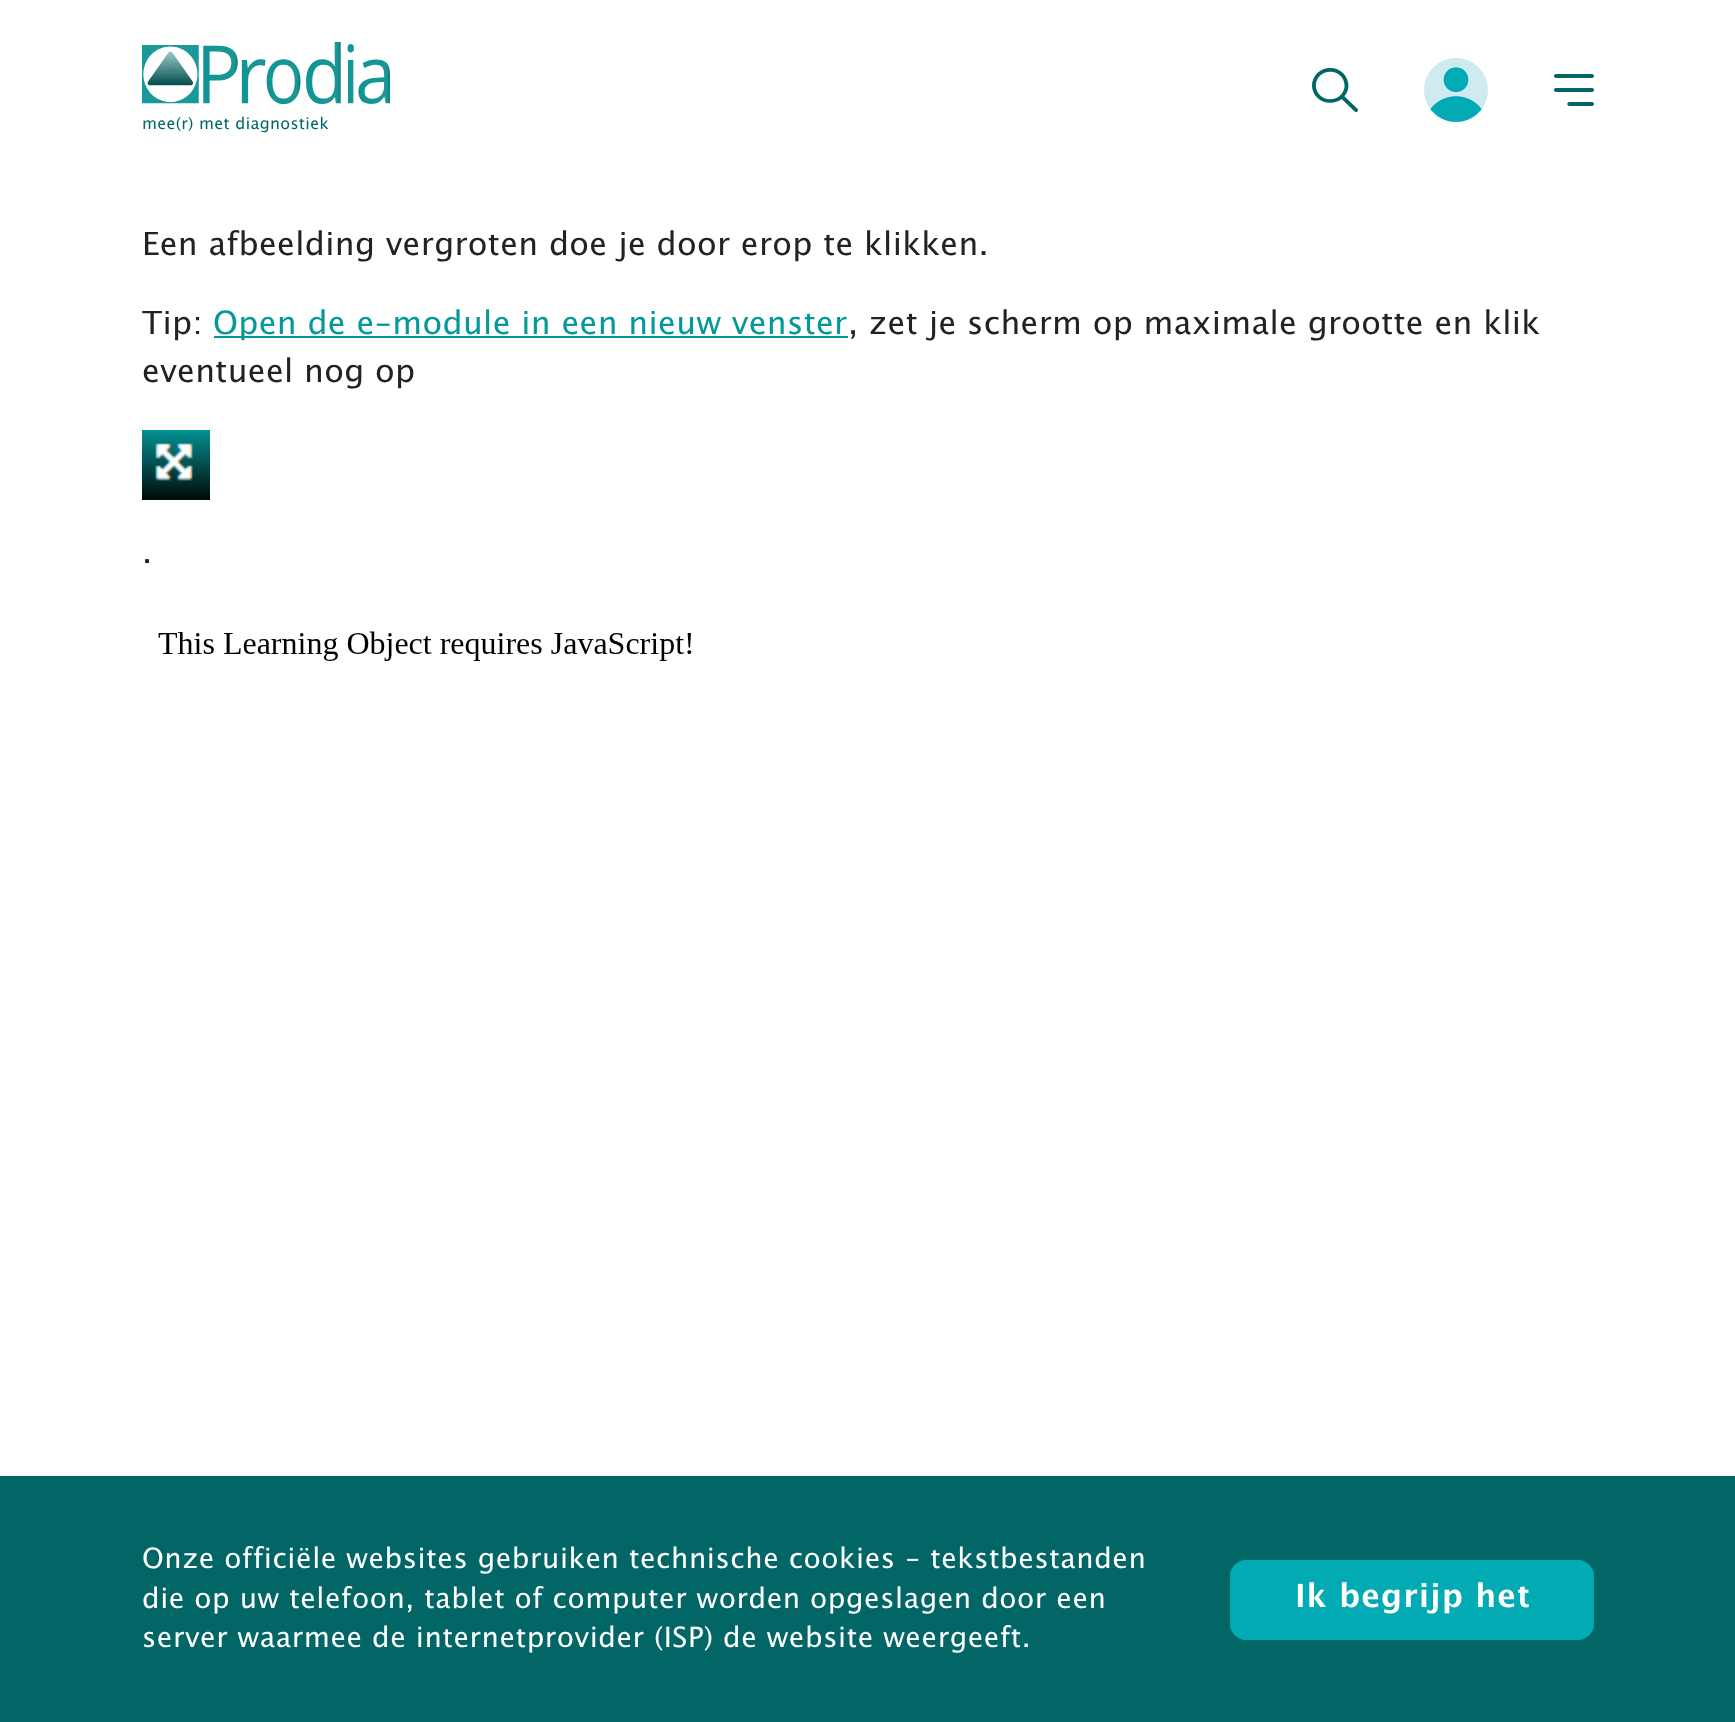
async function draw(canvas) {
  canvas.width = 1735;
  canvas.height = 1722;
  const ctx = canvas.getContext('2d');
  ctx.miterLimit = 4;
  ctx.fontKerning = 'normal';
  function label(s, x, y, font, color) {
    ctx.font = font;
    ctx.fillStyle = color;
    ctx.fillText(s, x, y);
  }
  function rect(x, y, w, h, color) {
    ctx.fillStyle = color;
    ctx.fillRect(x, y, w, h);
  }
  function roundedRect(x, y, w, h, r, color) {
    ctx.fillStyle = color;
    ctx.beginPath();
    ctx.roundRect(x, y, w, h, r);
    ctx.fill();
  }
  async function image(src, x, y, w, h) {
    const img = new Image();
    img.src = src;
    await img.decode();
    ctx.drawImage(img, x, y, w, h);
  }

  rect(0, 0, 1735, 1722, '#fff');
  await image('assets/img1.png', 142, 42, 248, 91);
  await image('assets/img2.png', 1312, 68, 46, 44);
  await image('assets/img3.png', 1424, 58, 64, 64);
  await image('assets/img4.png', 1554, 74, 40, 32);
  ctx.letterSpacing = '0.32px';
  label('Een afbeelding vergroten doe je door erop te klikken.', 142, 255, '32px Lucida Grande', '#222');
  label('Tip:', 142, 334, '32px Lucida Grande', '#222');
  rect(214, 336, 634, 2, '#049999');
  label('Open de e-module in een nieuw venster', 213, 334, '32px Lucida Grande', '#049999');
  label(', zet je scherm op maximale grootte en klik', 848, 334, '32px Lucida Grande', '#222');
  label('eventueel nog op', 142, 382, '32px Lucida Grande', '#222');
  await image('assets/img5.png', 142, 430, 68, 70);
  label('.', 142, 563, '32px Lucida Grande', '#222');
  await image('assets/img6.png', 158, 631, 534, 30);
  rect(0, 1476, 1735, 246, '#026666');
  ctx.letterSpacing = '0.55px';
  label('Onze officiële websites gebruiken technische cookies - tekstbestanden', 142, 1568, '28px Lucida Grande', '#fff');
  label('die op uw telefoon, tablet of computer worden opgeslagen door een', 142, 1608, '28px Lucida Grande', '#fff');
  label('server waarmee de internetprovider (ISP) de website weergeeft.', 142, 1647, '28px Lucida Grande', '#fff');
  roundedRect(1230, 1560, 364, 80, 16, '#02aab4');
  ctx.letterSpacing = '1px';
  label('Ik begrijp het', 1295, 1607, 'bold 32px Lucida Grande', '#fff');
}

draw(document.querySelector('canvas'));
